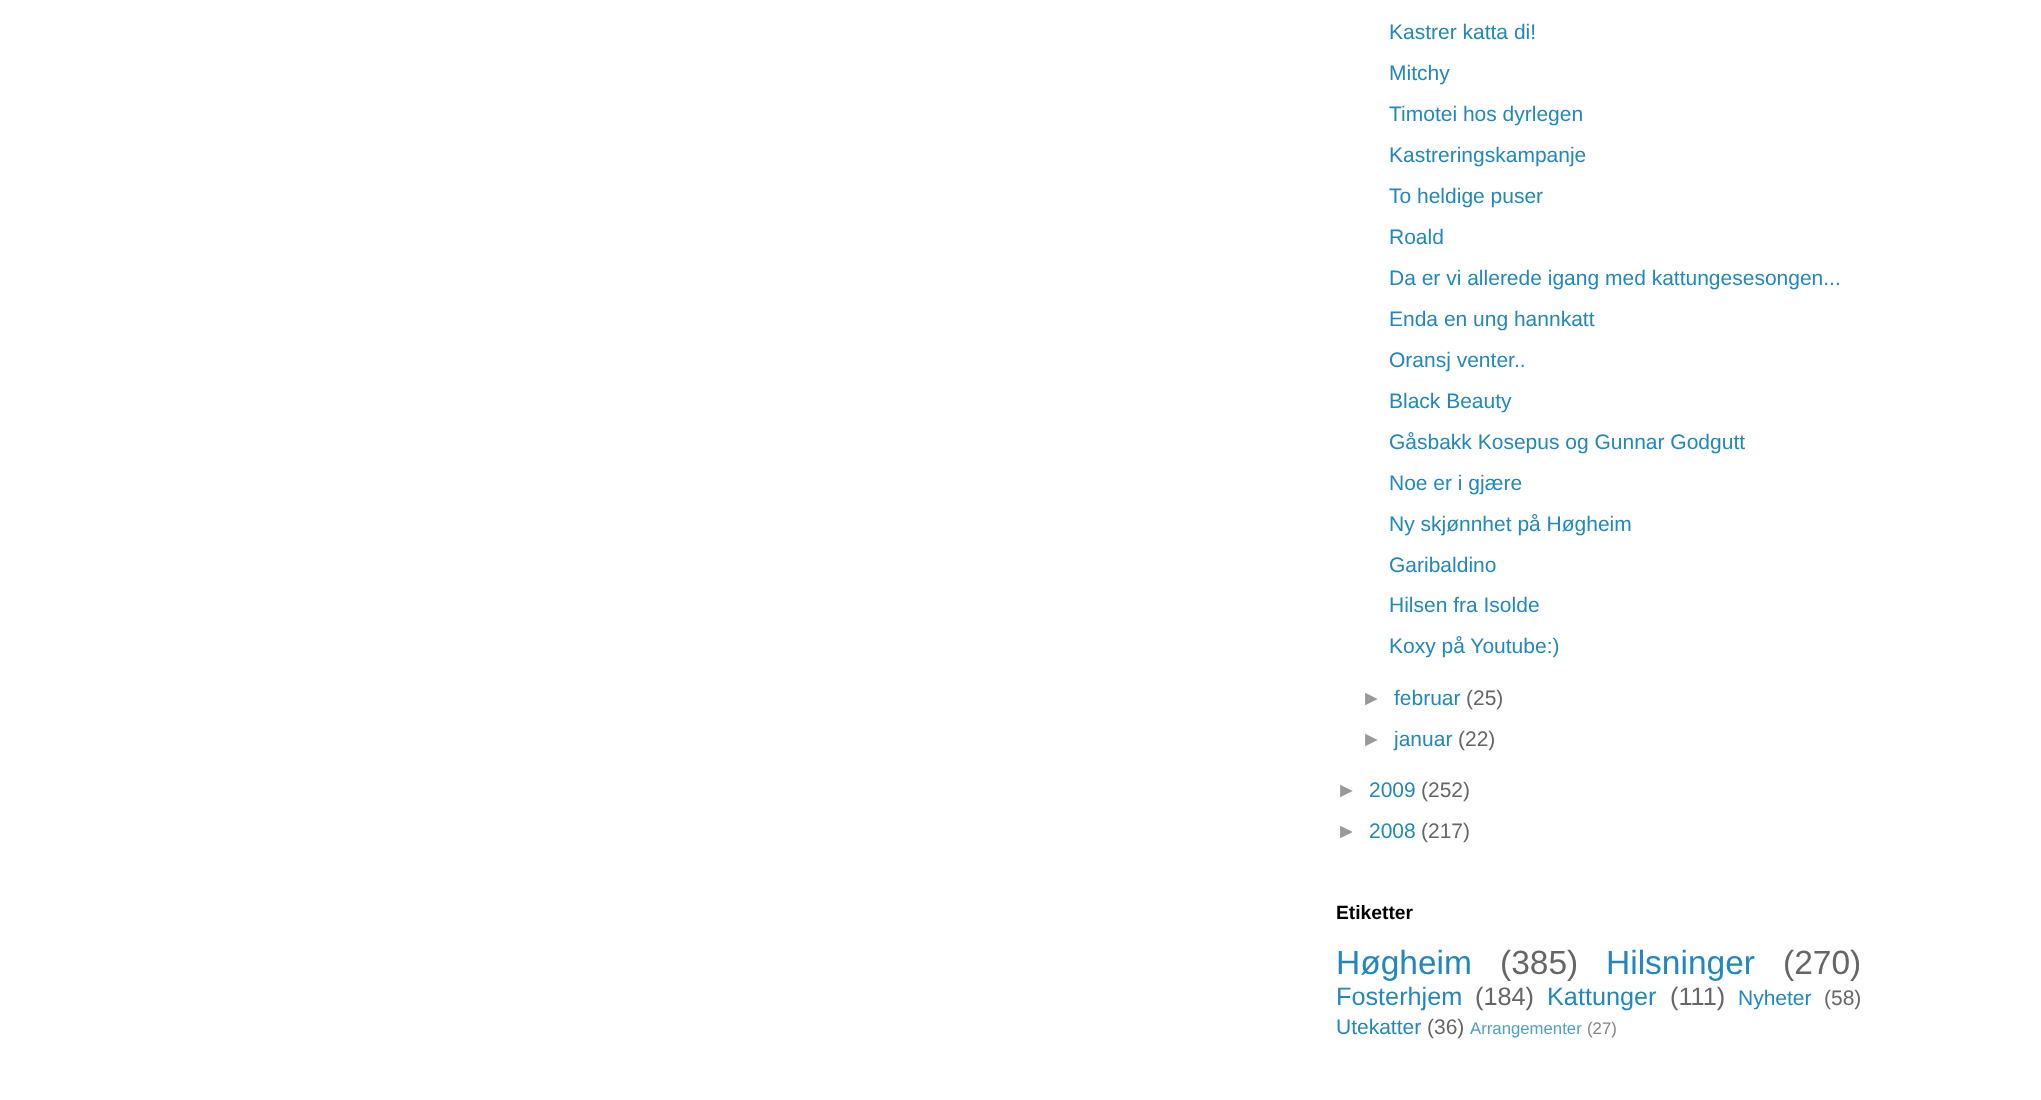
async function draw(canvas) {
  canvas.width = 2041;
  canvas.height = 1100;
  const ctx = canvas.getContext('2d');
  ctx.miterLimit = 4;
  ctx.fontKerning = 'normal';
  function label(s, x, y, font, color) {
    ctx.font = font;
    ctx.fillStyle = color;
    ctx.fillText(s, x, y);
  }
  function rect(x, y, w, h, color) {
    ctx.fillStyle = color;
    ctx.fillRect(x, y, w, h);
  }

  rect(0, 0, 2041, 1100, '#fff');
  label('Kastrer katta di!', 1389, 39, '21px Liberation Sans', '#28b');
  label('Mitchy', 1389, 80, '21px Liberation Sans', '#28b');
  label('Timotei hos dyrlegen', 1389, 121, '21px Liberation Sans', '#28b');
  label('Kastreringskampanje', 1389, 162, '21px Liberation Sans', '#28b');
  label('To heldige puser', 1389, 203, '21px Liberation Sans', '#28b');
  label('Roald', 1389, 244, '21px Liberation Sans', '#28b');
  label('Da er vi allerede igang med kattungesesongen...', 1389, 285, '21px Liberation Sans', '#28b');
  label('Enda en ung hannkatt', 1389, 326, '21px Liberation Sans', '#28b');
  label('Oransj venter..', 1389, 367, '21px Liberation Sans', '#28b');
  label('Black Beauty', 1389, 408, '21px Liberation Sans', '#28b');
  label('Gåsbakk Kosepus og Gunnar Godgutt', 1389, 449, '21px Liberation Sans', '#28b');
  label('Noe er i gjære', 1389, 490, '21px Liberation Sans', '#28b');
  label('Ny skjønnhet på Høgheim', 1389, 531, '21px Liberation Sans', '#28b');
  label('Garibaldino', 1389, 572, '21px Liberation Sans', '#28b');
  label('Hilsen fra Isolde', 1389, 612, '21px Liberation Sans', '#28b');
  label('Koxy på Youtube:)', 1389, 653, '21px Liberation Sans', '#28b');
  label('►', 1361, 705, '21px Liberation Sans', '#999');
  label('februar', 1394, 705, '21px Liberation Sans', '#28b');
  label('(25)', 1466, 705, '21px Liberation Sans', '#666');
  label('►', 1361, 746, '21px Liberation Sans', '#999');
  label('januar', 1394, 746, '21px Liberation Sans', '#28b');
  label('(22)', 1458, 746, '21px Liberation Sans', '#666');
  label('►', 1336, 797, '21px Liberation Sans', '#999');
  label('2009', 1369, 797, '21px Liberation Sans', '#28b');
  label('(252)', 1421, 797, '21px Liberation Sans', '#666');
  label('►', 1336, 838, '21px Liberation Sans', '#999');
  label('2008', 1369, 838, '21px Liberation Sans', '#28b');
  label('(217)', 1421, 838, '21px Liberation Sans', '#666');
  label('Etiketter', 1336, 919, 'bold 19.25px Liberation Sans', '#000');
  label('Høgheim', 1336, 974, '33.5px Liberation Sans', '#28b');
  label('(385)', 1500, 974, '33.5px Liberation Sans', '#666');
  label('Hilsninger', 1606, 974, '33.5px Liberation Sans', '#28b');
  label('(270)', 1783, 974, '33.5px Liberation Sans', '#666');
  label('Fosterhjem', 1336, 1005, '25.25px Liberation Sans', '#28b');
  label('(184)', 1475, 1005, '25.25px Liberation Sans', '#666');
  label('Kattunger', 1547, 1005, '25.25px Liberation Sans', '#28b');
  label('(111)', 1670, 1005, '25.25px Liberation Sans', '#666');
  label('Nyheter', 1738, 1005, '21px Liberation Sans', '#28b');
  label('(58)', 1824, 1005, '21px Liberation Sans', '#666');
  label('Utekatter', 1336, 1034, '21px Liberation Sans', '#28b');
  label('(36)', 1427, 1034, '21px Liberation Sans', '#666');
  label('Arrangementer', 1470, 1034, '16.75px Liberation Sans', '#4ea0c9');
  label('(27)', 1587, 1034, '16.75px Liberation Sans', '#858585');
}

draw(document.querySelector('canvas'));
